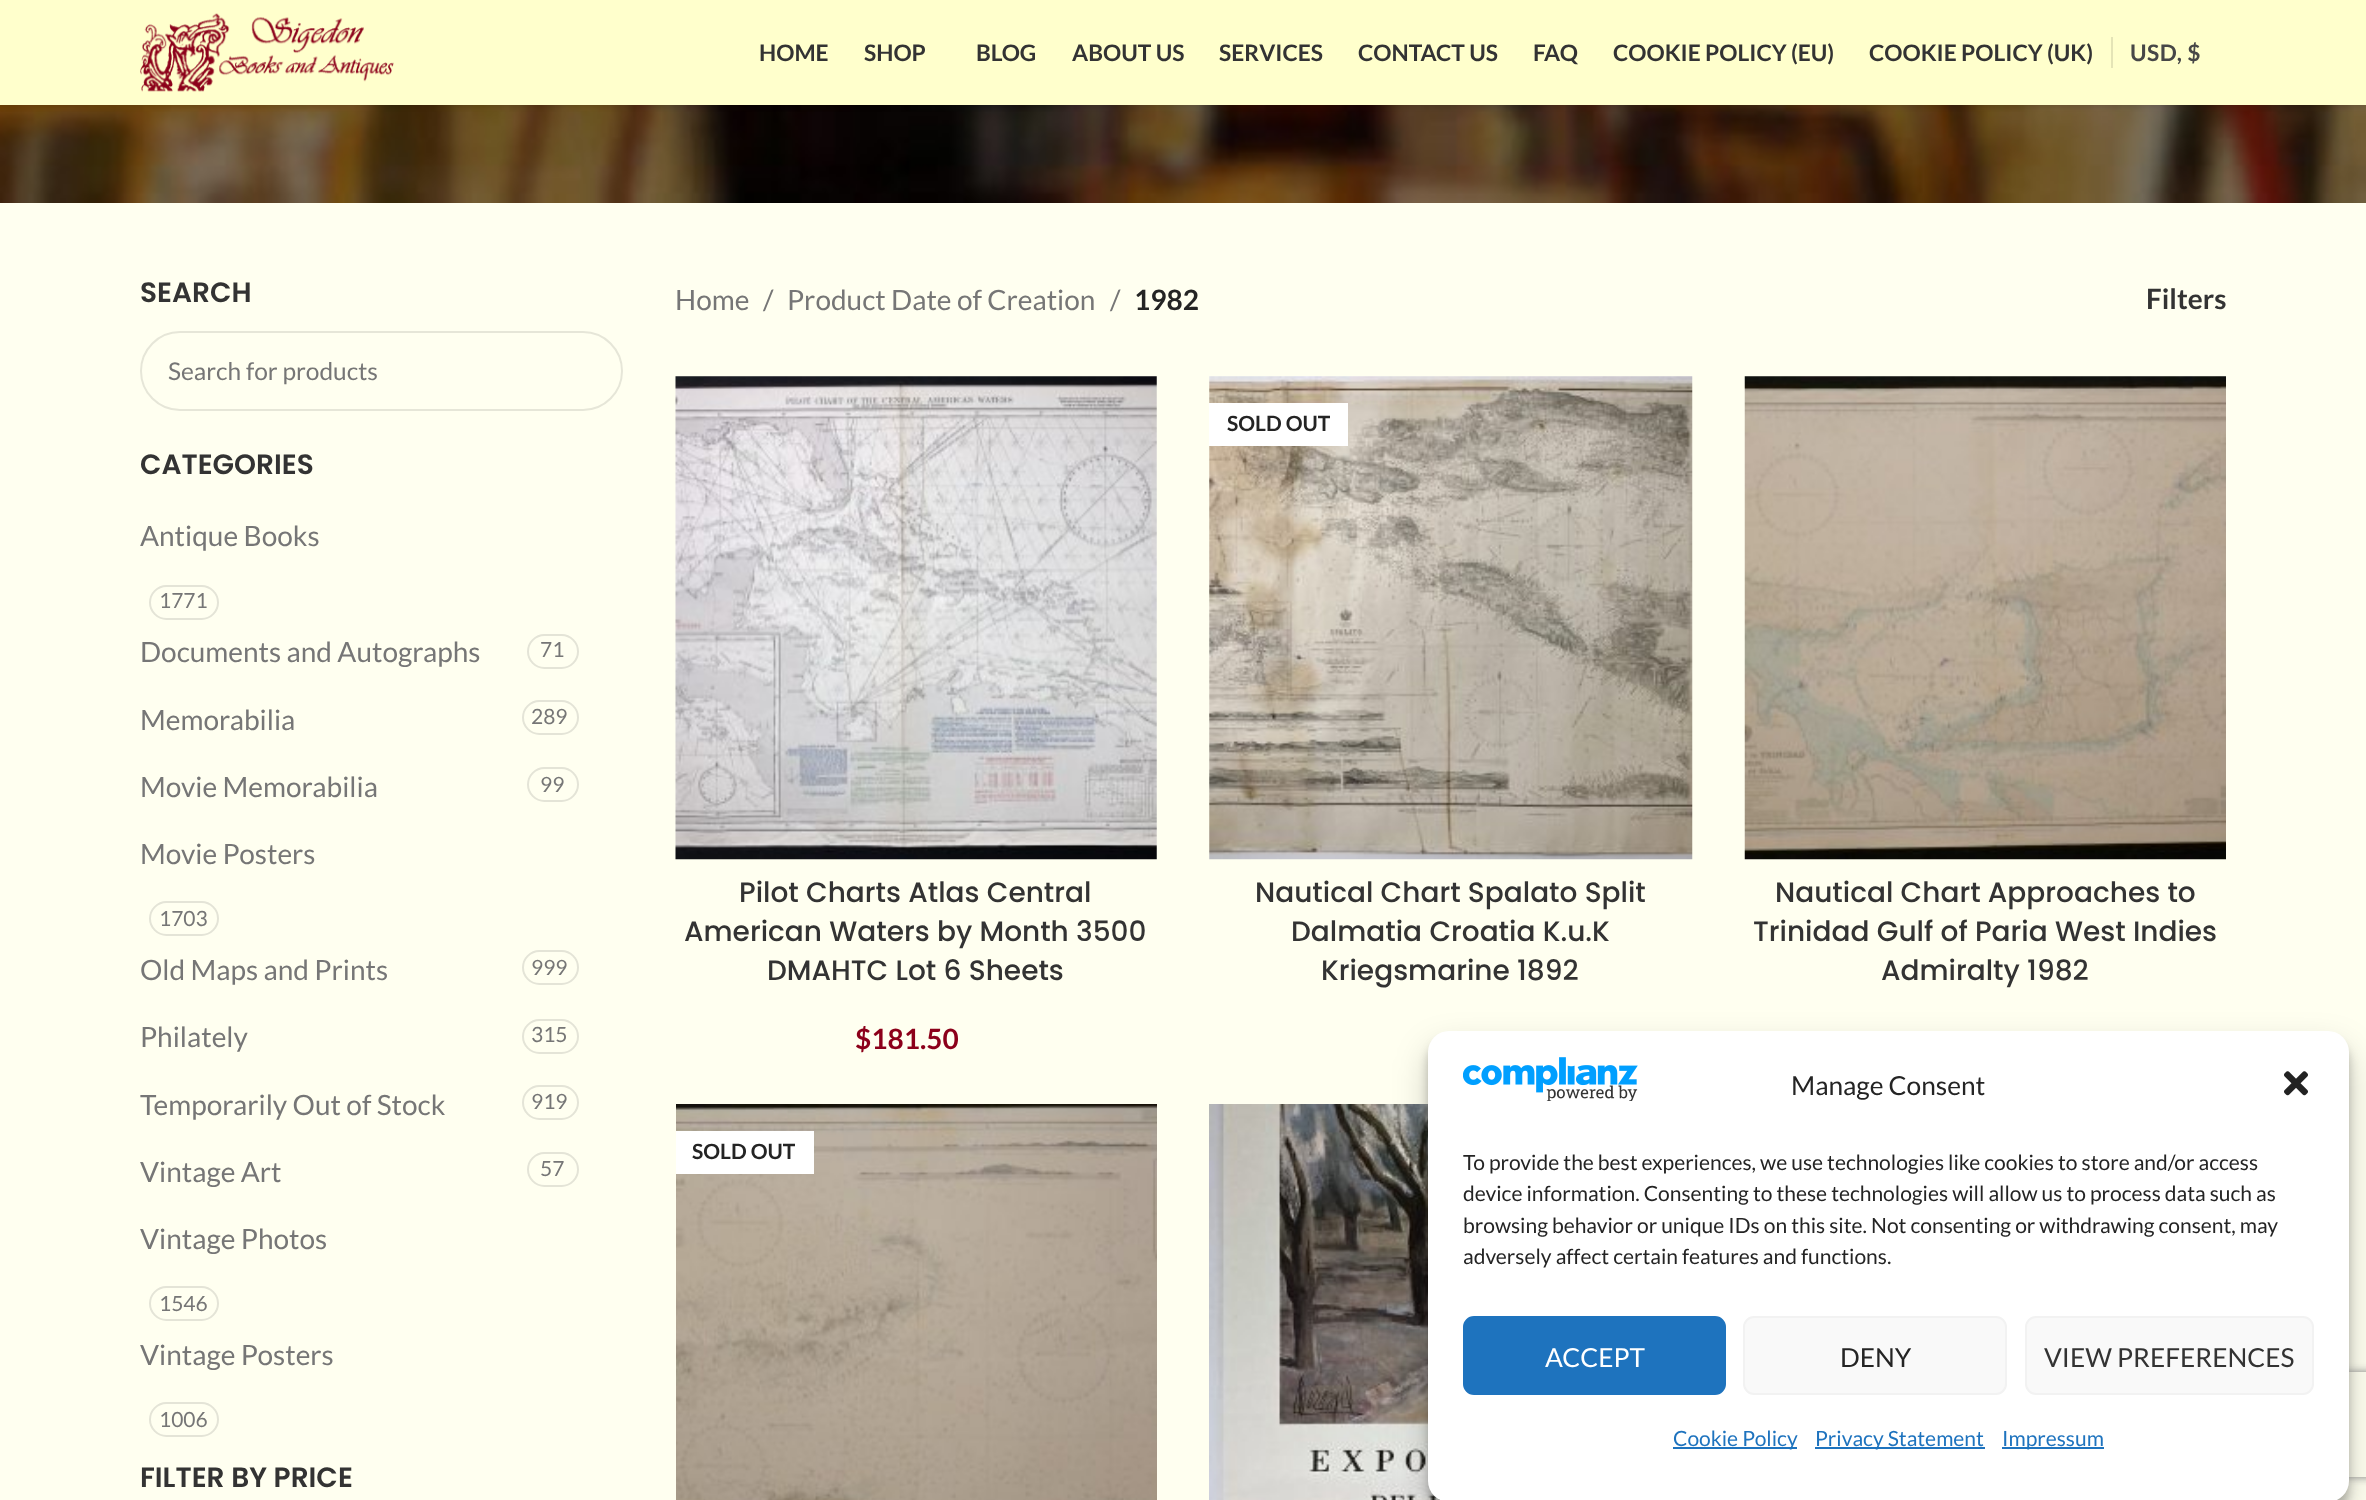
async function draw(canvas) {
  canvas.width = 2366;
  canvas.height = 1500;
  const ctx = canvas.getContext('2d');
  ctx.miterLimit = 4;
  ctx.fontKerning = 'normal';
  function label(s, x, y, font, color) {
    ctx.font = font;
    ctx.fillStyle = color;
    ctx.fillText(s, x, y);
  }
  function rect(x, y, w, h, color) {
    ctx.fillStyle = color;
    ctx.fillRect(x, y, w, h);
  }
  function roundedRect(x, y, w, h, r, color) {
    ctx.fillStyle = color;
    ctx.beginPath();
    ctx.roundRect(x, y, w, h, r);
    ctx.fill();
  }
  async function image(src, x, y, w, h) {
    const img = new Image();
    img.src = src;
    await img.decode();
    ctx.drawImage(img, x, y, w, h);
  }
  let path;

  rect(0, 0, 2366, 1500, '#fffff0');
  await image('assets/img2.png', 0, 105, 2366, 98);
  ctx.fillStyle = '#0000001a';
  ctx.filter = 'blur(2.5px)';
  ctx.beginPath();
  ctx.rect(0, 2, 2366, 105);
  ctx.fill();
  ctx.filter = 'none';
  rect(0, 0, 2366, 105, '#ffc');
  await image('assets/img1.png', 140, 13, 254, 79);
  label('HOME', 759, 61, 'bold 22.75px Lato', '#333');
  label('SHOP', 864, 61, 'bold 22.75px Lato', '#333');
  label('BLOG', 976, 61, 'bold 22.75px Lato', '#333');
  label('ABOUT US', 1072, 61, 'bold 22.75px Lato', '#333');
  label('SERVICES', 1219, 61, 'bold 22.75px Lato', '#333');
  label('CONTACT US', 1358, 61, 'bold 22.75px Lato', '#333');
  label('FAQ', 1533, 61, 'bold 22.75px Lato', '#333');
  label('COOKIE POLICY (EU)', 1613, 61, 'bold 22.75px Lato', '#333');
  label('COOKIE POLICY (UK)', 1869, 61, 'bold 22.75px Lato', '#333');
  rect(2111, 37, 2, 31, '#e4e4b6');
  ctx.letterSpacing = '0.5px';
  label('USD, $', 2130, 61, 'bold 22.75px Lato', '#474747');
  ctx.letterSpacing = '0px';
  label('SEARCH', 140, 302, '600 28px Poppins', '#333');
  ctx.beginPath();
  ctx.roundRect(141, 332, 481, 78, 39);
  ctx.strokeStyle = '#e6e6d8';
  ctx.lineWidth = 2;
  ctx.stroke();
  label('Search for products', 168, 380, '24.5px Lato', '#767676');
  label('CATEGORIES', 140, 474, '600 28px Poppins', '#333');
  label('Antique Books', 140, 546, '28px Lato', '#767676');
  ctx.beginPath();
  ctx.roundRect(150, 586, 68, 33, 16.5);
  ctx.strokeStyle = '#e4e4d7';
  ctx.stroke();
  label('1771', 159, 608, '21px Lato', '#767676');
  label('Documents and Autographs', 140, 662, '28px Lato', '#767676');
  ctx.beginPath();
  ctx.roundRect(528, 635, 50, 33, 16.5);
  ctx.stroke();
  label('71', 540, 657, '21px Lato', '#767676');
  label('Memorabilia', 140, 730, '28px Lato', '#767676');
  ctx.beginPath();
  ctx.roundRect(523, 701, 55, 33, 16.5);
  ctx.stroke();
  label('289', 531, 724, '21px Lato', '#767676');
  label('Movie Memorabilia', 140, 797, '28px Lato', '#767676');
  ctx.beginPath();
  ctx.roundRect(528, 768, 50, 33, 16.5);
  ctx.stroke();
  label('99', 540, 792, '21px Lato', '#767676');
  label('Movie Posters', 140, 864, '28px Lato', '#767676');
  ctx.beginPath();
  ctx.roundRect(150, 902, 68, 33, 16.5);
  ctx.stroke();
  label('1703', 159, 926, '21px Lato', '#767676');
  label('Old Maps and Prints', 140, 980, '28px Lato', '#767676');
  ctx.beginPath();
  ctx.roundRect(523, 951, 55, 33, 16.5);
  ctx.stroke();
  label('999', 531, 975, '21px Lato', '#767676');
  label('Philately', 140, 1047, '28px Lato', '#767676');
  ctx.beginPath();
  ctx.roundRect(523, 1020, 55, 33, 16.5);
  ctx.stroke();
  label('315', 531, 1042, '21px Lato', '#767676');
  label('Temporarily Out of Stock', 140, 1115, '28px Lato', '#767676');
  ctx.beginPath();
  ctx.roundRect(523, 1086, 55, 33, 16.5);
  ctx.stroke();
  label('919', 531, 1109, '21px Lato', '#767676');
  label('Vintage Art', 140, 1182, '28px Lato', '#767676');
  ctx.beginPath();
  ctx.roundRect(528, 1153, 50, 33, 16.5);
  ctx.stroke();
  label('57', 540, 1176, '21px Lato', '#767676');
  label('Vintage Photos', 140, 1249, '28px Lato', '#767676');
  ctx.beginPath();
  ctx.roundRect(150, 1287, 68, 33, 16.5);
  ctx.stroke();
  label('1546', 159, 1311, '21px Lato', '#767676');
  label('Vintage Posters', 140, 1365, '28px Lato', '#767676');
  ctx.beginPath();
  ctx.roundRect(150, 1403, 68, 33, 16.5);
  ctx.stroke();
  label('1006', 159, 1427, '21px Lato', '#767676');
  label('FILTER BY PRICE', 140, 1487, '600 28px Poppins', '#333');
  label('Home', 675, 310, '28px Lato', '#767676');
  label('/', 763, 310, '28px Lato', '#767676');
  label('Product Date of Creation', 787, 310, '28px Lato', '#767676');
  label('/', 1110, 310, '28px Lato', '#767676');
  label('1982', 1134, 310, 'bold 28px Lato', '#242424');
  label('Filters', 2146, 309, 'bold 28px Lato', '#333');
  await image('assets/img3.png', 675, 376, 482, 484);
  label('Pilot Charts Atlas Central', 739, 902, '500 28px Poppins', '#333');
  label('American Waters by Month 3500', 684, 941, '500 28px Poppins', '#333');
  label('DMAHTC Lot 6 Sheets', 767, 980, '500 28px Poppins', '#333');
  label('$181.50', 855, 1049, 'bold 28px Lato', '#8c001a');
  await image('assets/img4.png', 1209, 376, 484, 484);
  rect(1209, 403, 139, 43, '#fff');
  label('SOLD OUT', 1227, 431, 'bold 21px Lato', '#242424');
  label('Nautical Chart Spalato Split', 1255, 902, '500 28px Poppins', '#333');
  label('Dalmatia Croatia K.u.K', 1291, 941, '500 28px Poppins', '#333');
  label('Kriegsmarine 1892', 1321, 980, '500 28px Poppins', '#333');
  await image('assets/img5.png', 1744, 376, 482, 484);
  label('Nautical Chart Approaches to', 1775, 902, '500 28px Poppins', '#333');
  label('Trinidad Gulf of Paria West Indies', 1753, 941, '500 28px Poppins', '#333');
  label('Admiralty 1982', 1881, 980, '500 28px Poppins', '#333');
  await image('assets/img6.png', 676, 1104, 481, 396);
  rect(676, 1131, 138, 43, '#fff');
  label('SOLD OUT', 692, 1159, 'bold 21px Lato', '#242424');
  await image('assets/img7.png', 1209, 1104, 231, 396);
  ctx.fillStyle = '#0000003b';
  ctx.filter = 'blur(5px)';
  ctx.beginPath();
  ctx.roundRect(1428, 1041, 921, 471, 21);
  ctx.fill();
  ctx.filter = 'none';
  ctx.fillStyle = '#00000030';
  ctx.filter = 'blur(17.5px)';
  ctx.beginPath();
  ctx.roundRect(1428, 1048, 921, 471, 21);
  ctx.fill();
  ctx.filter = 'none';
  ctx.save();
  path = new Path2D('M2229 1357H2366V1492H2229ZM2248 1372H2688C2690 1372 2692 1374 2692 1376V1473C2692 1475 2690 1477 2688 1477H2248C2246 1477 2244 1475 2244 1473V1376C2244 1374 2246 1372 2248 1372Z');
  ctx.clip(path, 'evenodd');
  ctx.fillStyle = '#808080';
  ctx.filter = 'blur(4.5px)';
  ctx.beginPath();
  ctx.roundRect(2244, 1372, 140, 105, 4);
  ctx.fill();
  ctx.filter = 'none';
  ctx.restore();
  roundedRect(1428, 1031, 921, 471, 21, '#fff');
  await image('assets/img8.png', 1463, 1057, 175, 44);
  label('Manage Consent', 1791, 1095, '26.25px Lato', '#242424');
  await image('assets/img9.png', 2284, 1071, 24, 25);
  label('To provide the best experiences, we use technologies like cookies to store and/or access', 1463, 1170, '21px Lato', '#242424');
  label('device information. Consenting to these technologies will allow us to process data such as', 1463, 1201, '21px Lato', '#242424');
  label('browsing behavior or unique IDs on this site. Not consenting or withdrawing consent, may', 1463, 1233, '21px Lato', '#242424');
  label('adversely affect certain features and functions.', 1463, 1264, '21px Lato', '#242424');
  ctx.fillStyle = '#1e73be';
  ctx.beginPath();
  ctx.roundRect(1464, 1317, 261, 77, 10);
  ctx.fill();
  ctx.strokeStyle = '#1e73be';
  ctx.stroke();
  label('ACCEPT', 1545, 1367, '26.25px Lato', '#fff');
  ctx.fillStyle = '#f9f9f9';
  ctx.beginPath();
  ctx.roundRect(1744, 1317, 262, 77, 10);
  ctx.fill();
  ctx.strokeStyle = '#f2f2f2';
  ctx.stroke();
  label('DENY', 1840, 1367, '26.25px Lato', '#242424');
  ctx.fillStyle = '#f9f9f9';
  ctx.beginPath();
  ctx.roundRect(2026, 1317, 287, 77, 10);
  ctx.fill();
  ctx.stroke();
  label('VIEW PREFERENCES', 2044, 1367, '26.25px Lato', '#333');
  rect(1673, 1447, 124, 2, '#1e73be');
  label('Cookie Policy', 1673, 1446, '21px Lato', '#1e73be');
  rect(1815, 1447, 170, 2, '#1e73be');
  label('Privacy Statement', 1815, 1446, '21px Lato', '#1e73be');
  rect(2002, 1447, 102, 2, '#1e73be');
  label('Impressum', 2002, 1446, '21px Lato', '#1e73be');
}

draw(document.querySelector('canvas'));
